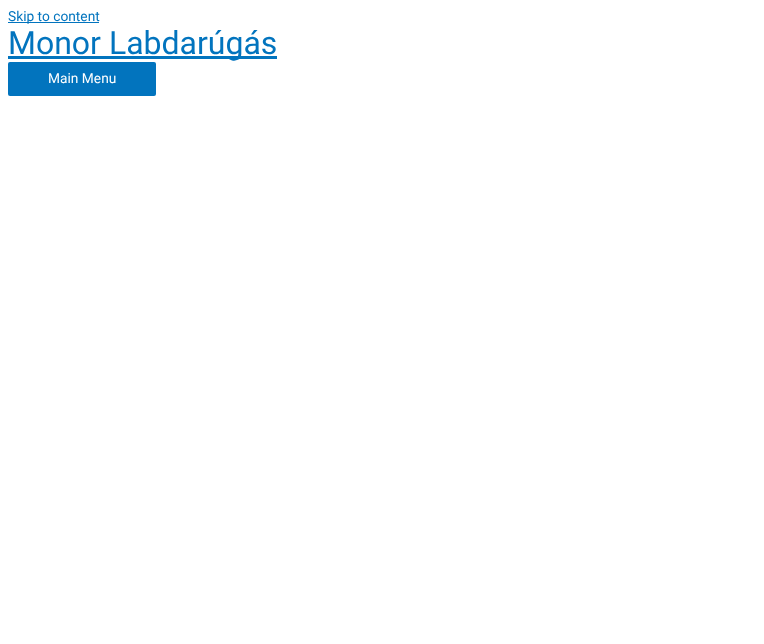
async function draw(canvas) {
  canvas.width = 764;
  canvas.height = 644;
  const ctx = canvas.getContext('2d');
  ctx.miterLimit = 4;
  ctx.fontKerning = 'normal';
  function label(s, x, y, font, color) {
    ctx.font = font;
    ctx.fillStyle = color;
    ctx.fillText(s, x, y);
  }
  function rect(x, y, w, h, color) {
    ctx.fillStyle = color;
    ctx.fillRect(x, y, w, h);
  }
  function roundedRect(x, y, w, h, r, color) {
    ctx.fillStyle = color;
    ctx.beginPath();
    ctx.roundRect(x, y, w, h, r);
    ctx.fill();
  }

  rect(0, 0, 764, 644, '#fff');
  rect(8, 22, 91, 1, '#0274be');
  label('Skip to content', 8, 21, '13.75px Roboto', '#0274be');
  rect(8, 56, 269, 3, '#0274be');
  label('Monor Labdarúgás', 8, 54, '32px Roboto', '#0274be');
  roundedRect(8, 62, 148, 34, 2, '#0274be');
  label('Main Menu', 48, 83, '13.75px Roboto', '#fff');
}

draw(document.querySelector('canvas'));
